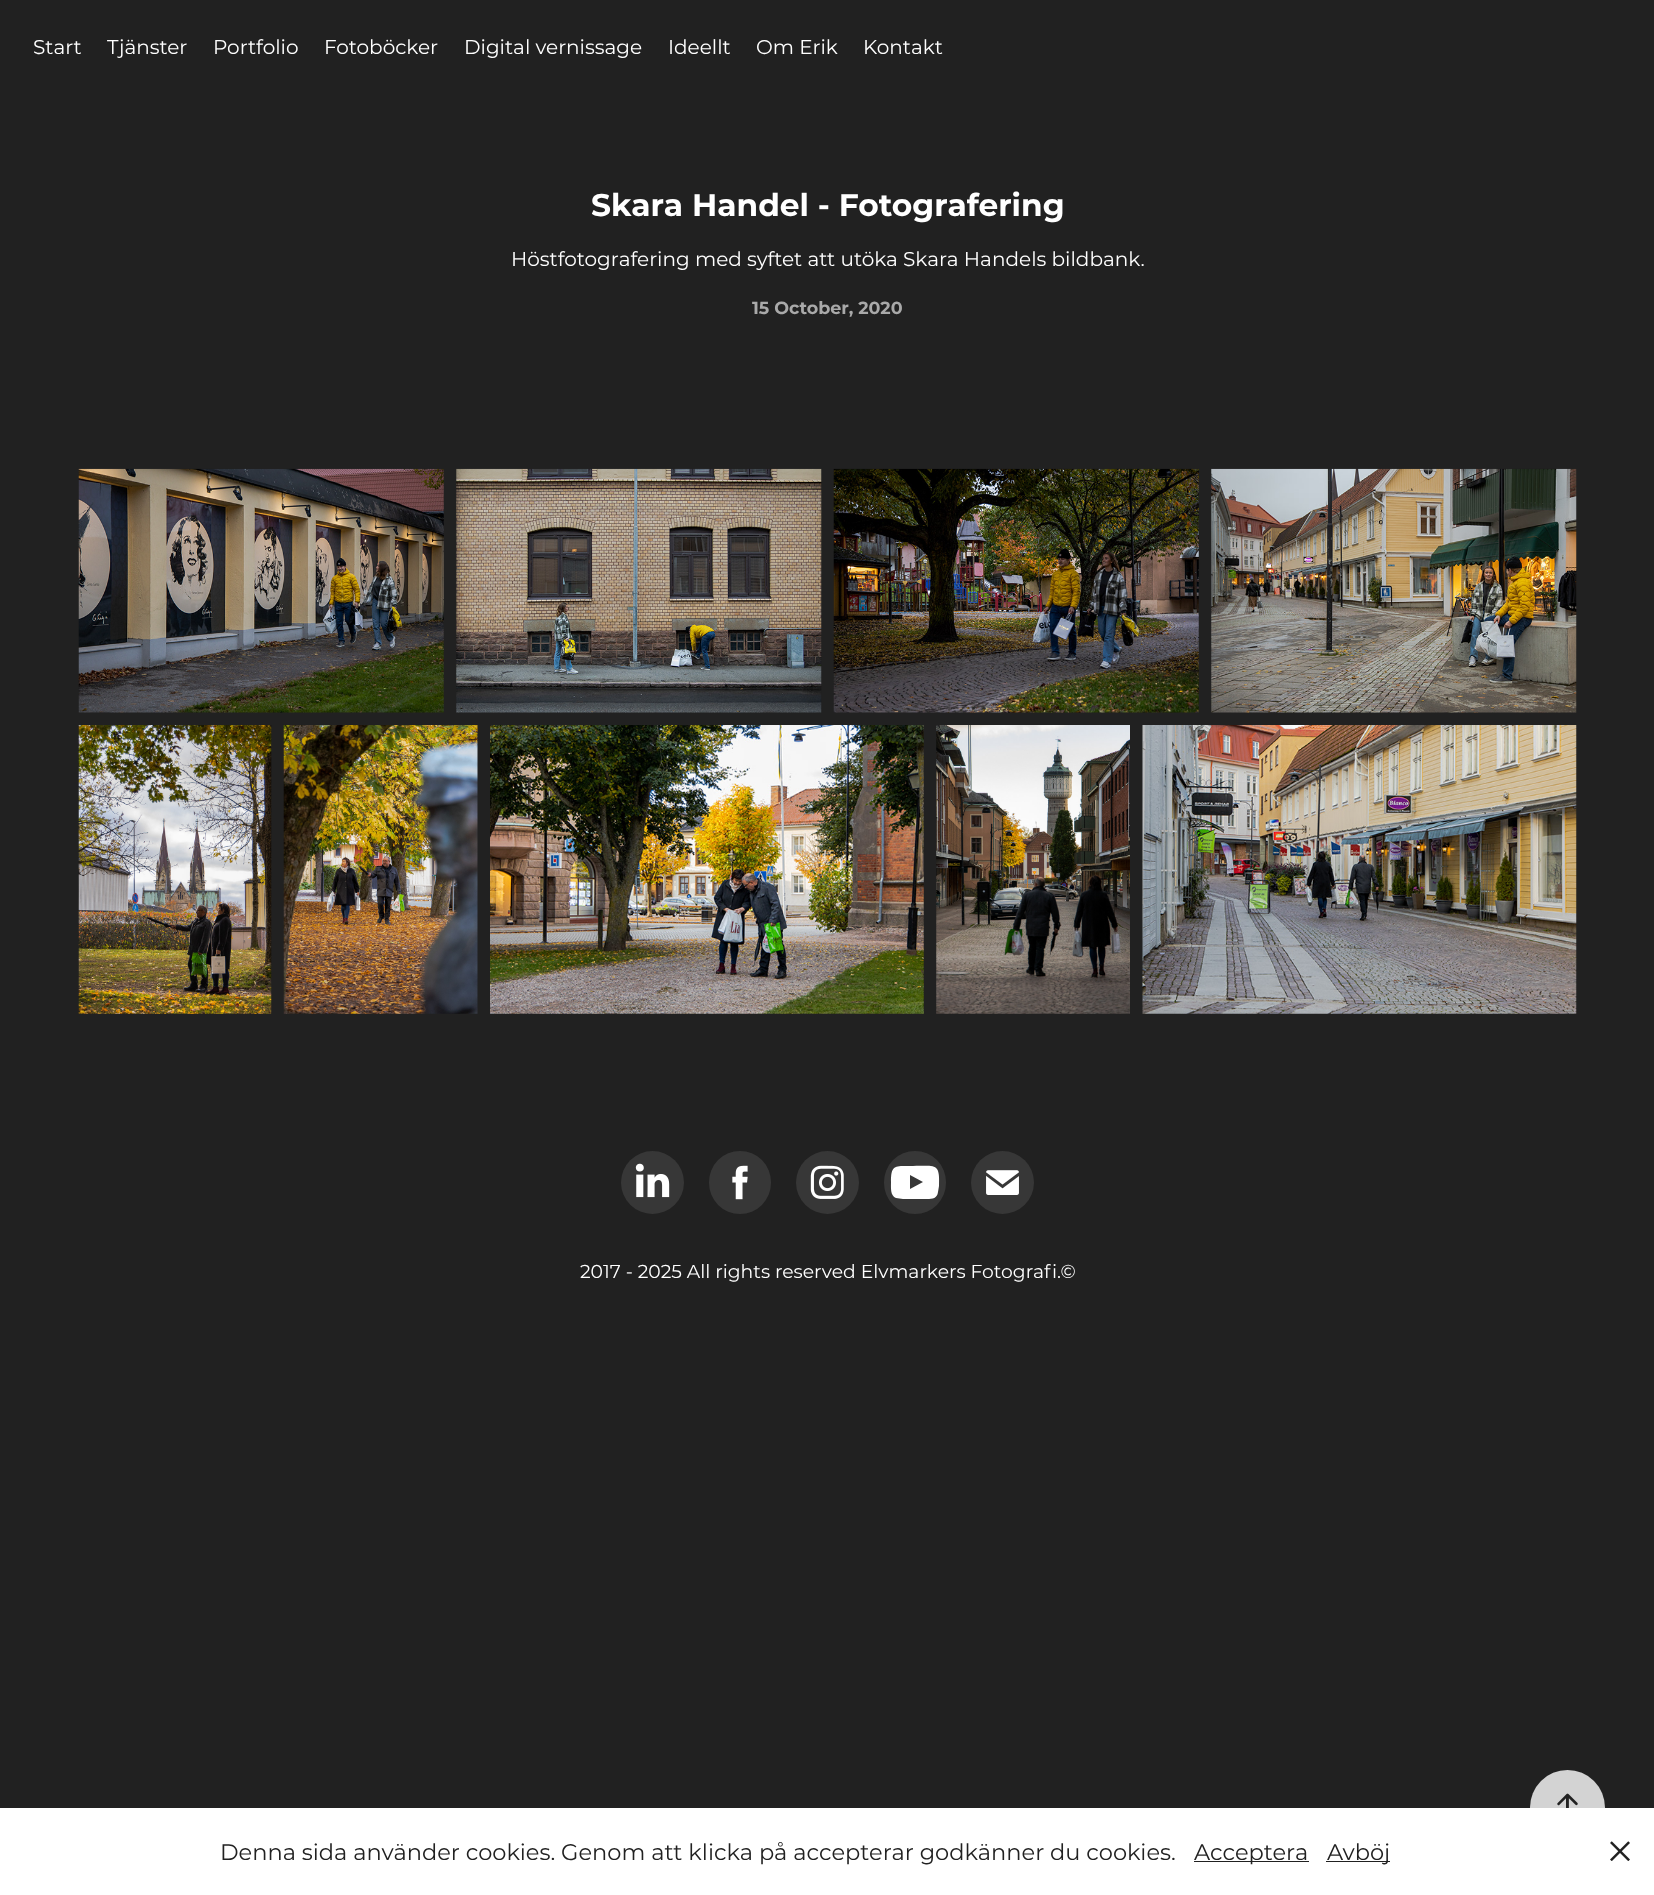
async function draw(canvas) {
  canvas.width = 1654;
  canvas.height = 1895;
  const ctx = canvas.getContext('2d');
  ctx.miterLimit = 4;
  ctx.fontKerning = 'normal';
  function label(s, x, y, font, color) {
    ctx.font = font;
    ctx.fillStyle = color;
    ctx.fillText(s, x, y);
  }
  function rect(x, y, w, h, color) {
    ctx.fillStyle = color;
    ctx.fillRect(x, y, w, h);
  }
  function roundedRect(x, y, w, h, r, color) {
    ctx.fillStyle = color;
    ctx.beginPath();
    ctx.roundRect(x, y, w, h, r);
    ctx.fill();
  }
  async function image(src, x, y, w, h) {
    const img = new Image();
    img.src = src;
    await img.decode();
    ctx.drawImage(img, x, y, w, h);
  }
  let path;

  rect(0, 0, 1654, 1895, '#212121');
  label('Start', 33, 54, '20px Montserrat', '#fff');
  label('Tjänster', 107, 54, '20px Montserrat', '#fff');
  label('Portfolio', 213, 54, '20px Montserrat', '#fff');
  label('Fotoböcker', 324, 54, '20px Montserrat', '#fff');
  label('Digital vernissage', 464, 54, '20px Montserrat', '#fff');
  label('Ideellt', 668, 54, '20px Montserrat', '#fff');
  label('Om Erik', 756, 54, '20px Montserrat', '#fff');
  label('Kontakt', 863, 54, '20px Montserrat', '#fff');
  label('Skara Handel - Fotografering', 591, 216, 'bold 31.25px Montserrat', '#fff');
  label('Höstfotografering med syftet att utöka Skara Handels bildbank.', 511, 266, '20px Montserrat', '#fff');
  label('15 October, 2020', 752, 314, 'bold 17.5px Montserrat', '#a9a9a9');
  await image('assets/img1.png', 78, 468, 366, 245);
  await image('assets/img2.png', 456, 468, 366, 245);
  await image('assets/img3.png', 833, 468, 366, 245);
  await image('assets/img4.png', 1211, 468, 366, 245);
  await image('assets/img5.png', 78, 725, 194, 289);
  await image('assets/img6.png', 283, 725, 195, 289);
  await image('assets/img7.png', 490, 725, 434, 289);
  await image('assets/img8.png', 936, 725, 194, 289);
  await image('assets/img9.png', 1142, 725, 435, 289);
  ctx.fillStyle = '#d3d3d3';
  ctx.beginPath();
  ctx.arc(1567.5, 1807.5, 37.5, 0, 2 * Math.PI);
  ctx.fill();
  await image('assets/img10.png', 1557, 1793, 21, 15);
  ctx.fillStyle = '#373737';
  ctx.beginPath();
  ctx.arc(652.5, 1182.5, 31.5, 0, 2 * Math.PI);
  ctx.fill();
  await image('assets/img11.png', 635, 1163, 35, 35);
  roundedRect(709, 1151, 62, 63, 31, '#373737');
  await image('assets/img12.png', 732, 1165, 16, 35);
  ctx.beginPath();
  ctx.arc(827.5, 1182.5, 31.5, 0, 2 * Math.PI);
  ctx.fill();
  await image('assets/img13.png', 810, 1165, 34, 34);
  roundedRect(884, 1151, 62, 63, 31, '#373737');
  ctx.fillStyle = '#fff';
  path = new Path2D('M938 1192C937 1200 930 1199 923 1199H903L896 1198C890 1196 891 1187 891 1182C891 1164 895 1166 913 1166C936 1166 940 1163 939 1186ZM910 1175V1189L923 1182Z');
  ctx.fill(path);
  ctx.fillStyle = '#373737';
  ctx.beginPath();
  ctx.arc(1002.5, 1182.5, 31.5, 0, 2 * Math.PI);
  ctx.fill();
  await image('assets/img14.png', 986, 1170, 33, 25);
  label('2017 - 2025 All rights reserved Elvmarkers Fotografi.©', 580, 1278, '18.75px Montserrat', '#fff');
  rect(0, 1808, 1654, 87, '#fff');
  label('Denna sida använder cookies. Genom att klicka på accepterar godkänner du cookies.', 220, 1860, '22.5px Montserrat', '#212121');
  rect(1194, 1861, 115, 1, '#212121');
  label('Acceptera', 1194, 1860, '22.5px Montserrat', '#212121');
  rect(1326, 1861, 64, 1, '#212121');
  label('Avböj', 1327, 1860, '22.5px Montserrat', '#212121');
  await image('assets/img15.png', 1610, 1841, 20, 20);
}

draw(document.querySelector('canvas'));
